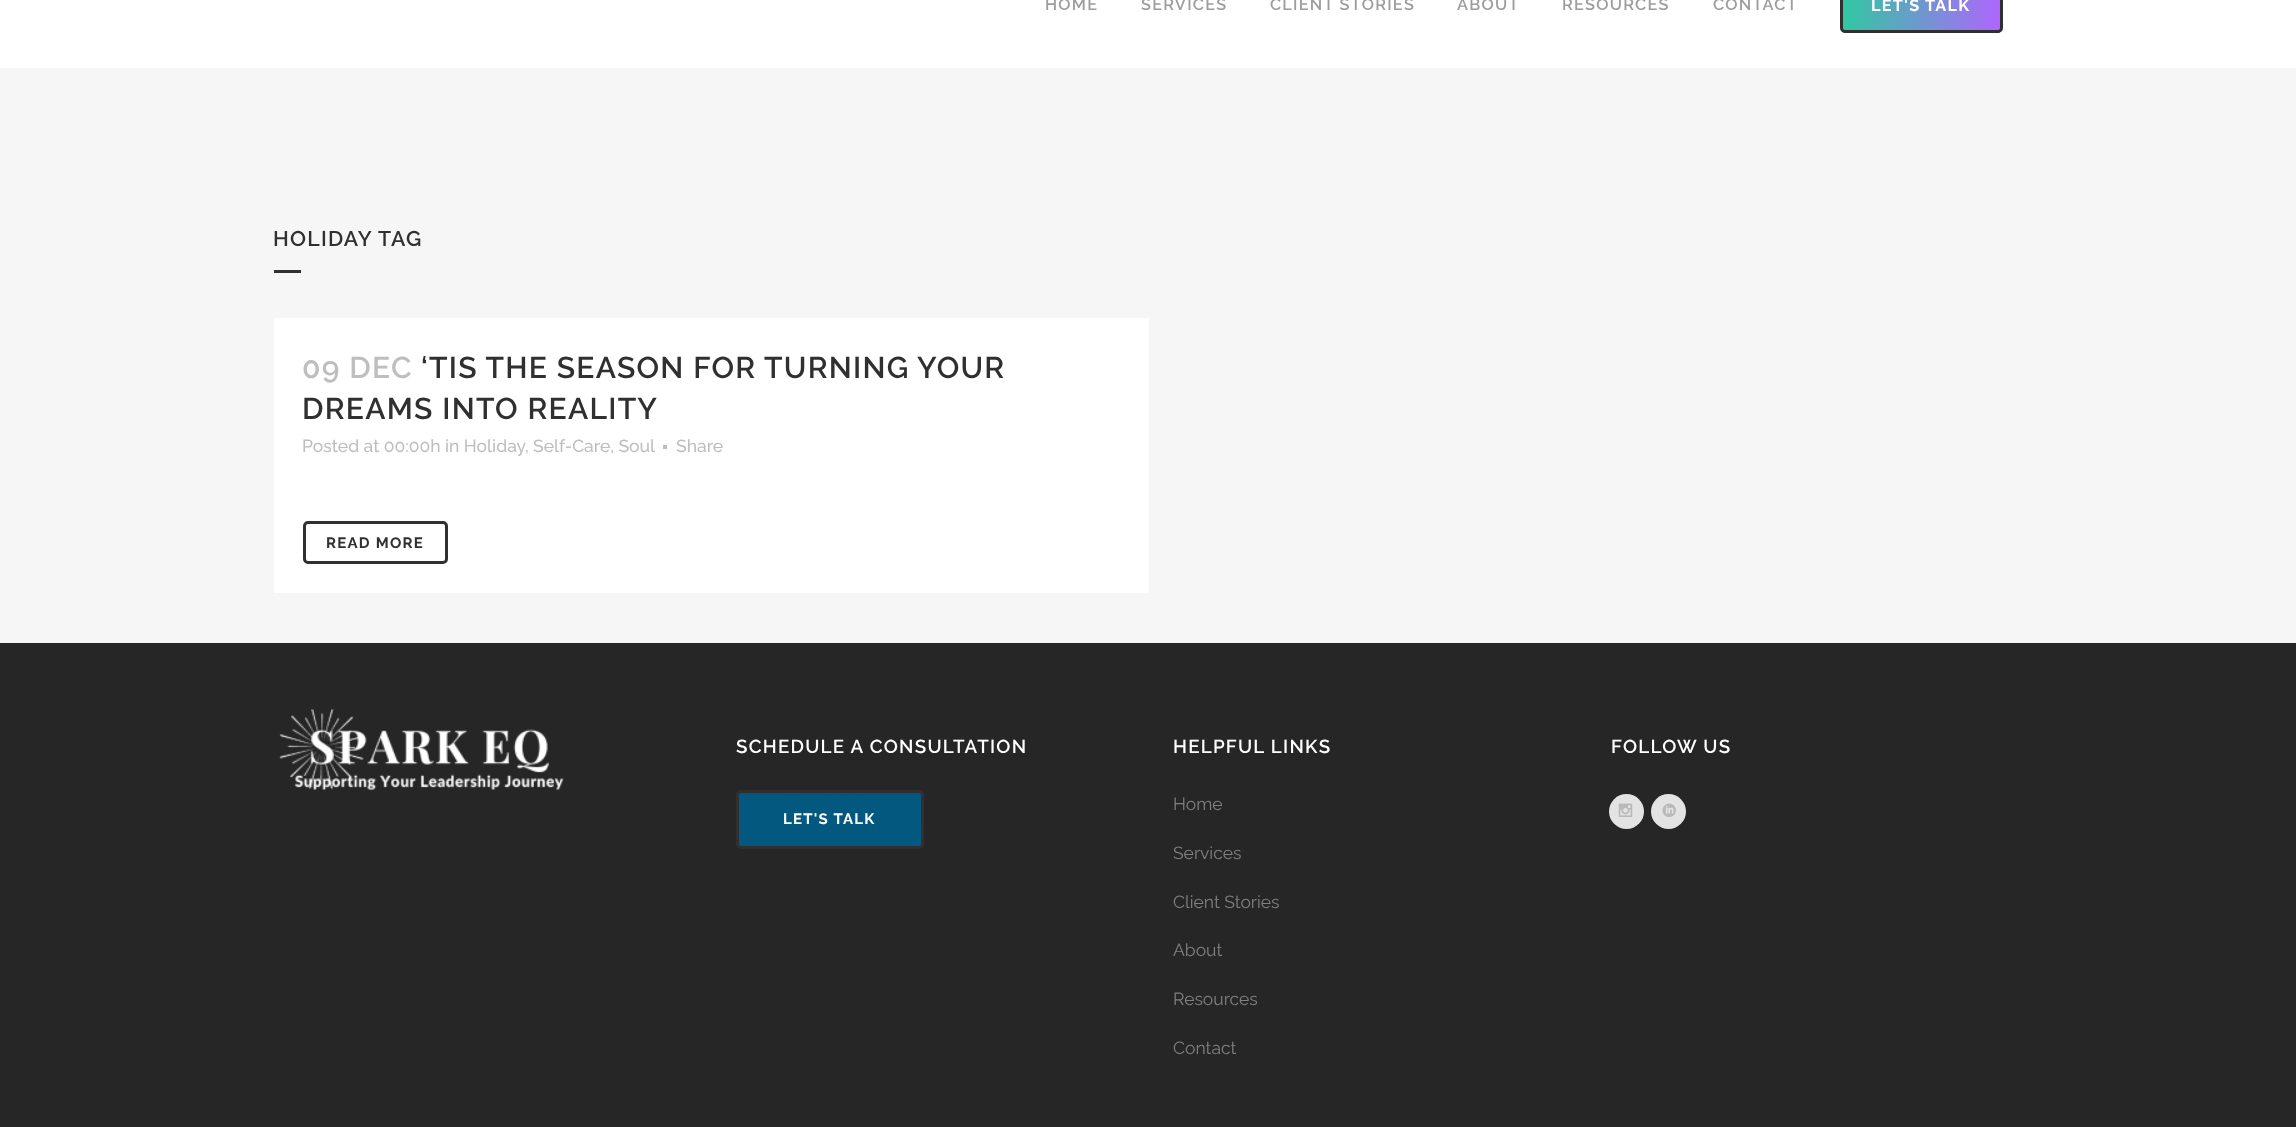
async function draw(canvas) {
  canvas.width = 2296;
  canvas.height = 1127;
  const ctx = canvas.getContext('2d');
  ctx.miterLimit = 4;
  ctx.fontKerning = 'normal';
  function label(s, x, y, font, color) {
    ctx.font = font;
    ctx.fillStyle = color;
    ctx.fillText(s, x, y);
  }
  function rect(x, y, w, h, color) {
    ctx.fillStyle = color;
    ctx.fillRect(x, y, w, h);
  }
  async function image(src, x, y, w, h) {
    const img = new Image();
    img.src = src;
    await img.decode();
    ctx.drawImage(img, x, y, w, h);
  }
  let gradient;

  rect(0, 0, 2296, 1127, '#f6f6f6');
  rect(0, 0, 2296, 68, '#fff');
  ctx.letterSpacing = '1.25px';
  label('HOME', 1045, 10, '600 16.25px Raleway', '#9d9d9d');
  label('SERVICES', 1141, 10, '600 16.25px Raleway', '#9d9d9d');
  label('CLIENT STORIES', 1270, 10, '600 16.25px Raleway', '#9d9d9d');
  label('ABOUT', 1457, 10, '600 16.25px Raleway', '#9d9d9d');
  label('RESOURCES', 1562, 10, '600 16.25px Raleway', '#9d9d9d');
  label('CONTACT', 1713, 10, '600 16.25px Raleway', '#9d9d9d');
  gradient = ctx.createLinearGradient(1843, 5.6, 2000, 5.6);
  gradient.addColorStop(0, '#31c8a2');
  gradient.addColorStop(1, '#ae66fd');
  ctx.fillStyle = gradient;
  ctx.fillRect(1843, 0, 157, 33);
  ctx.beginPath();
  ctx.roundRect(1841.5, -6.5, 160, 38, 3.5);
  ctx.strokeStyle = '#303030';
  ctx.lineWidth = 3;
  ctx.stroke();
  label('LET\'S TALK', 1871, 11, 'bold 16.25px Raleway', '#fff');
  label('HOLIDAY TAG', 273, 246, '600 21.25px Raleway', '#303030');
  rect(274, 270, 27, 3, '#303030');
  rect(274, 318, 875, 275, '#fff');
  label('09 DEC', 302, 378, '600 30px Raleway', '#bebebe');
  label('‘TIS THE SEASON FOR TURNING YOUR', 421, 378, '600 30px Raleway', '#303030');
  label('DREAMS INTO REALITY', 302, 419, '600 30px Raleway', '#303030');
  ctx.letterSpacing = '0px';
  label('Posted at 00:00h in Holiday', 302, 452, '500 17.5px Raleway', '#bebebe');
  label(', Self-Care, Soul', 525, 452, '500 17.5px Raleway', '#bebebe');
  rect(663, 445, 4, 4, '#bebebe');
  label('Share', 676, 452, '500 17.5px Raleway', '#bebebe');
  ctx.beginPath();
  ctx.roundRect(304.5, 522.5, 142, 40, 3.5);
  ctx.stroke();
  ctx.letterSpacing = '1.25px';
  label('READ MORE', 326, 548, 'bold 15px Raleway', '#303030');
  rect(0, 643, 2296, 484, '#262626');
  await image('assets/img1.png', 279, 709, 285, 82);
  label('SCHEDULE A CONSULTATION', 736, 753, '600 18.75px Raleway', '#fff');
  ctx.fillStyle = '#035880';
  ctx.beginPath();
  ctx.roundRect(737.5, 791.5, 185, 56, 3.5);
  ctx.fill();
  ctx.stroke();
  label('LET\'S TALK', 783, 824, 'bold 15px Raleway', '#fff');
  label('HELPFUL LINKS', 1173, 753, '600 18.75px Raleway', '#fff');
  ctx.letterSpacing = '0px';
  label('Home', 1173, 810, '17.5px Raleway', '#818181');
  label('Services', 1173, 859, '17.5px Raleway', '#818181');
  label('Client Stories', 1173, 908, '17.5px Raleway', '#818181');
  label('About', 1173, 956, '17.5px Raleway', '#818181');
  label('Resources', 1173, 1005, '17.5px Raleway', '#818181');
  label('Contact', 1173, 1054, '17.5px Raleway', '#818181');
  ctx.letterSpacing = '1.25px';
  label('FOLLOW US', 1611, 753, '600 18.75px Raleway', '#fff');
  ctx.fillStyle = '#e3e3e3';
  ctx.beginPath();
  ctx.arc(1626.5, 811.5, 17.5, 0, 2 * Math.PI);
  ctx.fill();
  await image('assets/img2.png', 1618, 803, 15, 14);
  ctx.beginPath();
  ctx.arc(1668.5, 811.5, 17.5, 0, 2 * Math.PI);
  ctx.fill();
  await image('assets/img3.png', 1662, 803, 14, 14);
}

draw(document.querySelector('canvas'));
